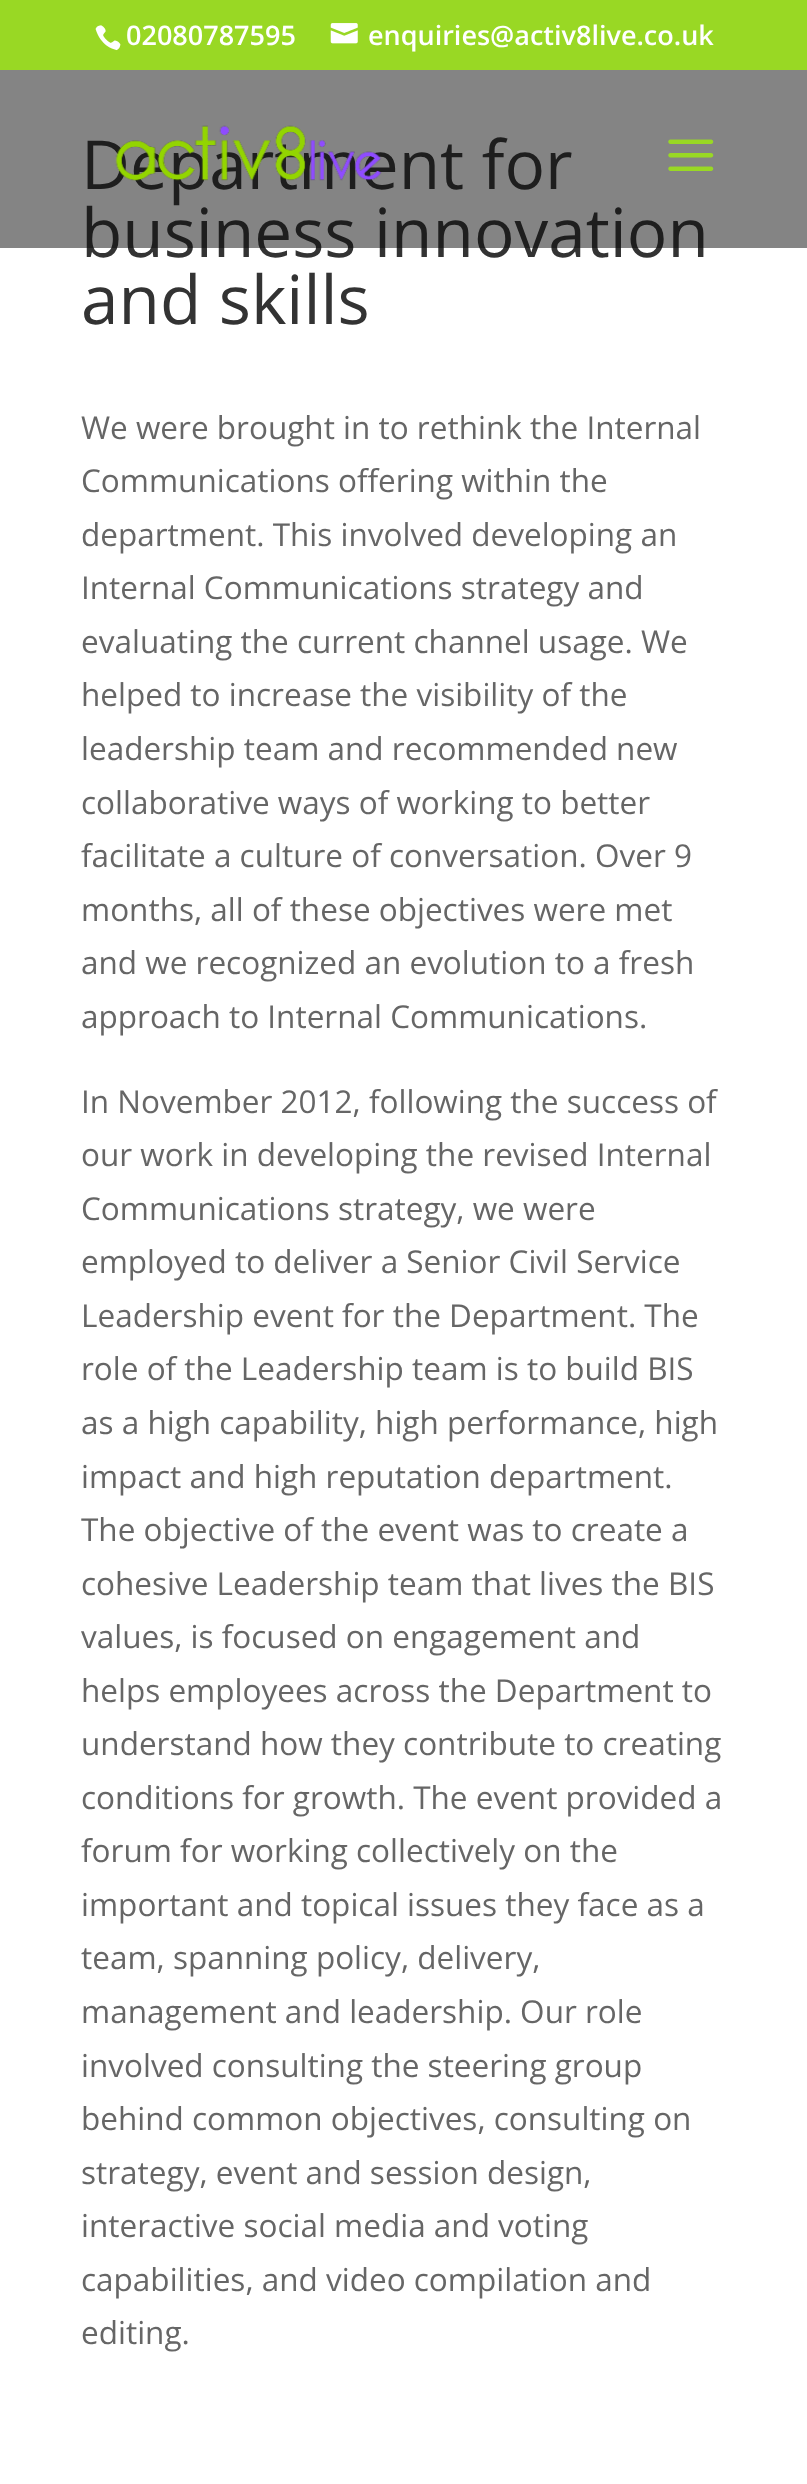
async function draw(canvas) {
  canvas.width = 807;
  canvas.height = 2484;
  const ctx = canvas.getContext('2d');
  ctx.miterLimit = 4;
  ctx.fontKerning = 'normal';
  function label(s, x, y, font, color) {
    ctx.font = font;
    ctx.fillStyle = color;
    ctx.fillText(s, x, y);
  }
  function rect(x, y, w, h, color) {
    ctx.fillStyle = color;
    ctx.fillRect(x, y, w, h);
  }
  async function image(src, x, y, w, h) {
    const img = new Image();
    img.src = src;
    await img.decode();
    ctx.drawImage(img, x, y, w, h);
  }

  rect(0, 0, 807, 2484, '#fff');
  rect(0, 0, 807, 70, '#99d824');
  await image('assets/img1.png', 95, 25, 26, 26);
  label('02080787595', 126, 45, '600 27px Open Sans', '#fff');
  await image('assets/img2.png', 330, 23, 28, 21);
  label('enquiries@activ8live.co.uk', 368, 45, '600 27px Open Sans', '#fff');
  label('Department for', 81, 189, '67.5px Open Sans', '#333');
  label('business innovation', 81, 257, '67.5px Open Sans', '#333');
  rect(0, 70, 807, 178, '#0a0a0a80');
  await image('assets/img3.png', 115, 125, 267, 56);
  await image('assets/img4.png', 668, 139, 46, 32);
  label('and skills', 81, 324, '67.5px Open Sans', '#333');
  label('We were brought in to rethink the Internal', 81, 439, '31.5px Open Sans', '#666');
  label('Communications offering within the', 81, 492, '31.5px Open Sans', '#666');
  label('department. This involved developing an', 81, 546, '31.5px Open Sans', '#666');
  label('Internal Communications strategy and', 81, 599, '31.5px Open Sans', '#666');
  label('evaluating the current channel usage. We', 81, 653, '31.5px Open Sans', '#666');
  label('helped to increase the visibility of the', 81, 706, '31.5px Open Sans', '#666');
  label('leadership team and recommended new', 81, 760, '31.5px Open Sans', '#666');
  label('collaborative ways of working to better', 81, 814, '31.5px Open Sans', '#666');
  label('facilitate a culture of conversation. Over 9', 81, 867, '31.5px Open Sans', '#666');
  label('months, all of these objectives were met', 81, 921, '31.5px Open Sans', '#666');
  label('and we recognized an evolution to a fresh', 81, 974, '31.5px Open Sans', '#666');
  label('approach to Internal Communications.', 81, 1028, '31.5px Open Sans', '#666');
  label('In November 2012, following the success of', 81, 1113, '31.5px Open Sans', '#666');
  label('our work in developing the revised Internal', 81, 1166, '31.5px Open Sans', '#666');
  label('Communications strategy, we were', 81, 1220, '31.5px Open Sans', '#666');
  label('employed to deliver a Senior Civil Service', 81, 1273, '31.5px Open Sans', '#666');
  label('Leadership event for the Department. The', 81, 1327, '31.5px Open Sans', '#666');
  label('role of the Leadership team is to build BIS', 81, 1380, '31.5px Open Sans', '#666');
  label('as a high capability, high performance, high', 81, 1434, '31.5px Open Sans', '#666');
  label('impact and high reputation department.', 81, 1488, '31.5px Open Sans', '#666');
  label('The objective of the event was to create a', 81, 1541, '31.5px Open Sans', '#666');
  label('cohesive Leadership team that lives the BIS', 81, 1595, '31.5px Open Sans', '#666');
  label('values, is focused on engagement and', 81, 1648, '31.5px Open Sans', '#666');
  label('helps employees across the Department to', 81, 1702, '31.5px Open Sans', '#666');
  label('understand how they contribute to creating', 81, 1755, '31.5px Open Sans', '#666');
  label('conditions for growth. The event provided a', 81, 1809, '31.5px Open Sans', '#666');
  label('forum for working collectively on the', 81, 1862, '31.5px Open Sans', '#666');
  label('important and topical issues they face as a', 81, 1916, '31.5px Open Sans', '#666');
  label('team, spanning policy, delivery,', 81, 1969, '31.5px Open Sans', '#666');
  label('management and leadership. Our role', 81, 2023, '31.5px Open Sans', '#666');
  label('involved consulting the steering group', 81, 2077, '31.5px Open Sans', '#666');
  label('behind common objectives, consulting on', 81, 2130, '31.5px Open Sans', '#666');
  label('strategy, event and session design,', 81, 2184, '31.5px Open Sans', '#666');
  label('interactive social media and voting', 81, 2237, '31.5px Open Sans', '#666');
  label('capabilities, and video compilation and', 81, 2291, '31.5px Open Sans', '#666');
  label('editing.', 81, 2344, '31.5px Open Sans', '#666');
}

draw(document.querySelector('canvas'));
